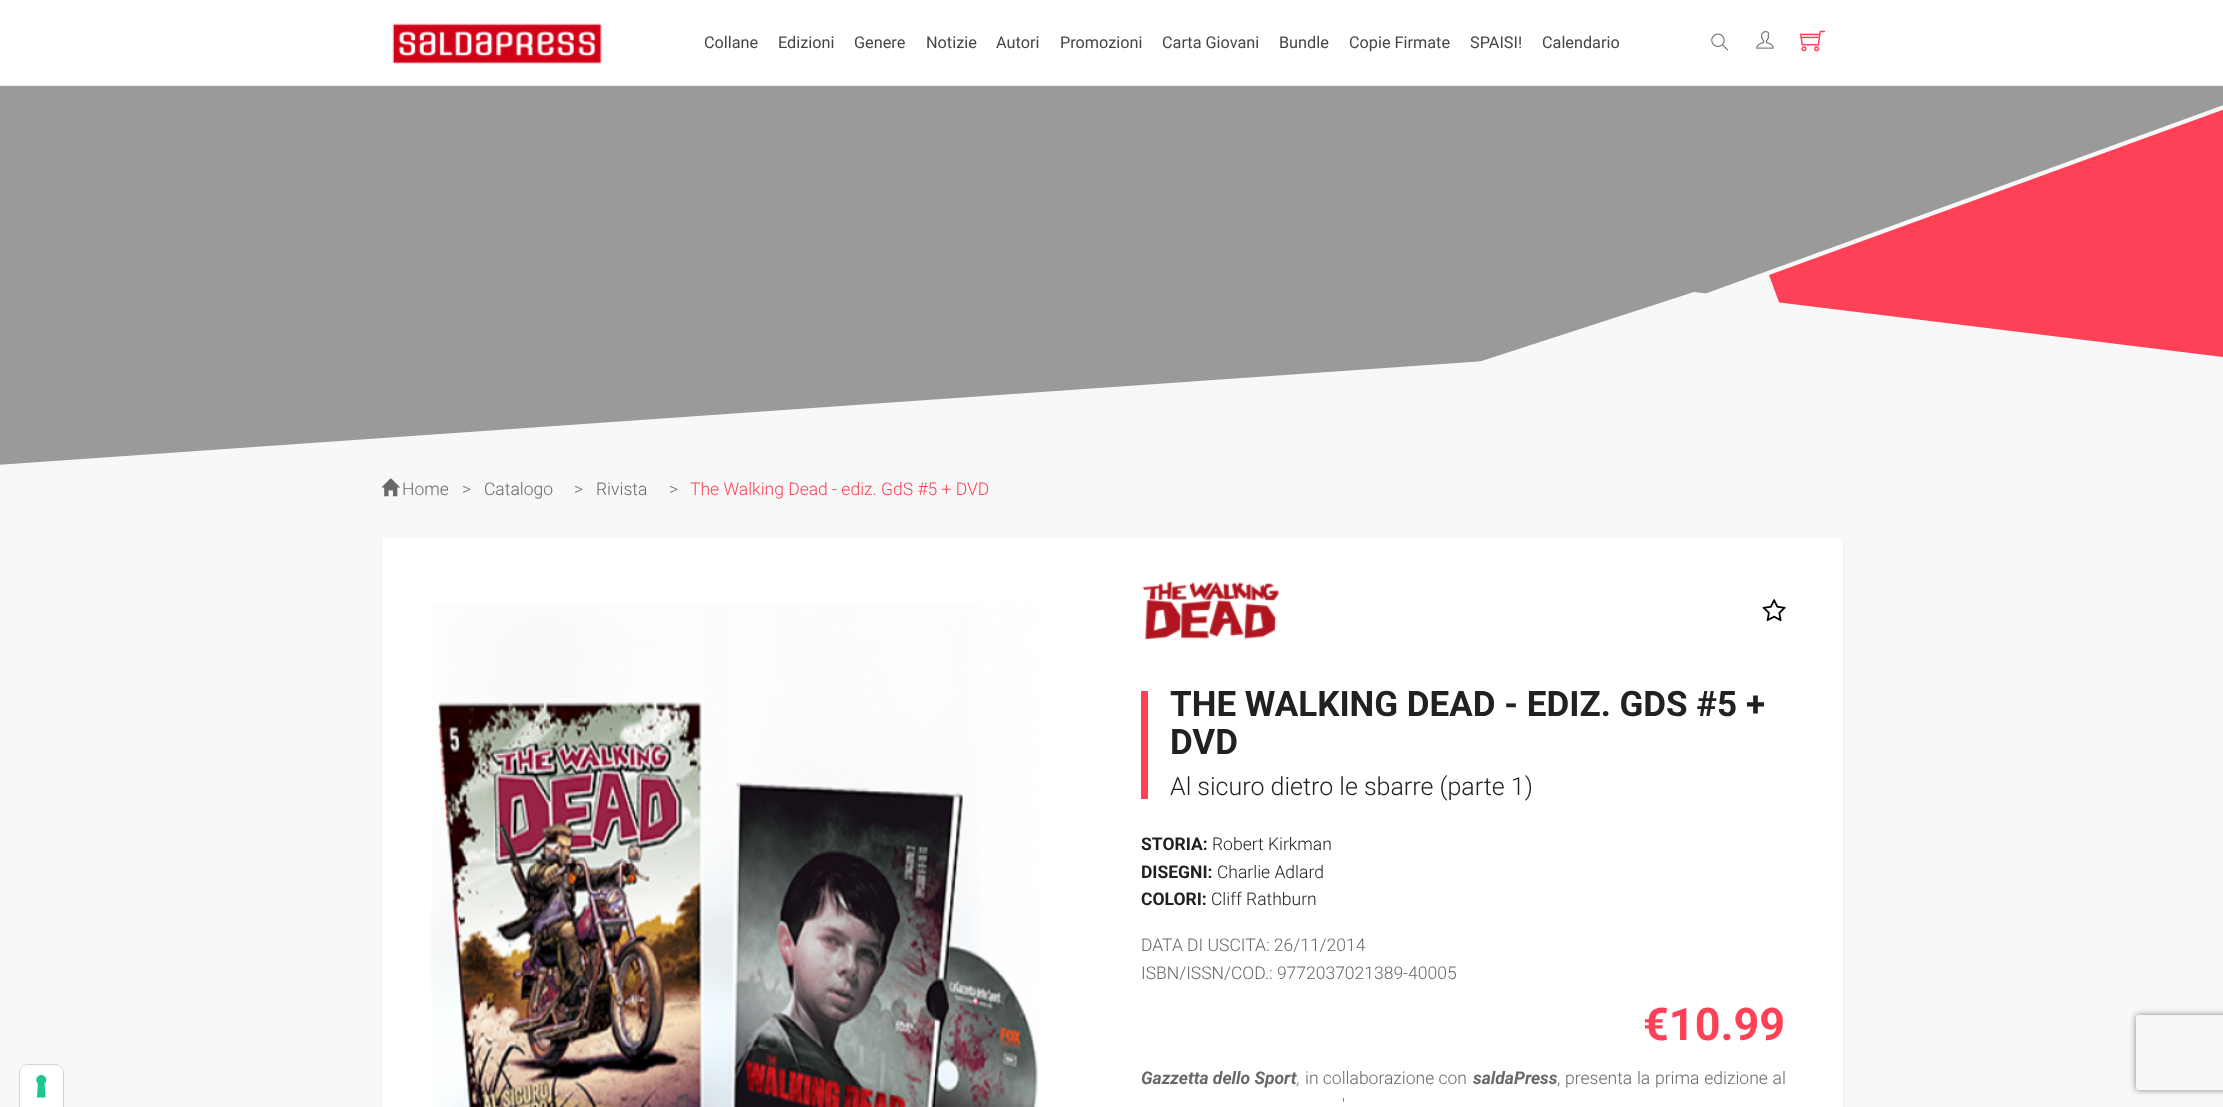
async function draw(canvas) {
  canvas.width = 2223;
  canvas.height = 1107;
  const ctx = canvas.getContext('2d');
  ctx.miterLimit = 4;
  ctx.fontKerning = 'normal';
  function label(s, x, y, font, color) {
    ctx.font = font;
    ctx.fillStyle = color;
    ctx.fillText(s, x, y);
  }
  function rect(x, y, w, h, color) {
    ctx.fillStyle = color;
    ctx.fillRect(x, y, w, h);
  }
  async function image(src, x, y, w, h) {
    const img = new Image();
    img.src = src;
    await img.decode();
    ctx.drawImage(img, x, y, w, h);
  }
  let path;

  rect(0, 0, 2223, 1107, '#f8f8f8');
  path = new Path2D('M28 1064.5H55C59.5 1064.5 63.5 1068.5 63.5 1073V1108.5H19.5V1073C19.5 1068.5 23.5 1064.5 28 1064.5Z');
  ctx.strokeStyle = '#d3d3d3';
  ctx.stroke(path);
  ctx.fillStyle = '#fff';
  path = new Path2D('M28 1065H55C59.5 1065 63 1068.5 63 1073V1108H20V1073C20 1068.5 23.5 1065 28 1065Z');
  ctx.fill(path);
  await image('assets/img1.png', 36, 1075, 11, 23);
  rect(0, 0, 2223, 85, '#fff');
  rect(0, 85, 2223, 1, '#f1f1f1');
  await image('assets/img2.png', 392, 23, 210, 41);
  label('Collane', 704, 48, '16.25px Roboto', '#454545');
  label('Edizioni', 778, 48, '16.25px Roboto', '#454545');
  label('Genere', 854, 48, '16.25px Roboto', '#454545');
  label('Notizie', 926, 48, '16.25px Roboto', '#454545');
  label('Autori', 996, 48, '16.25px Roboto', '#454545');
  label('Promozioni', 1060, 48, '16.25px Roboto', '#454545');
  label('Carta Giovani', 1162, 48, '16.25px Roboto', '#454545');
  label('Bundle', 1279, 48, '16.25px Roboto', '#454545');
  label('Copie Firmate', 1349, 48, '16.25px Roboto', '#454545');
  label('SPAISI!', 1470, 48, '16.25px Roboto', '#454545');
  label('Calendario', 1542, 48, '16.25px Roboto', '#454545');
  await image('assets/img3.png', 1711, 33, 18, 18);
  await image('assets/img4.png', 1756, 31, 18, 18);
  await image('assets/img5.png', 1799, 30, 26, 22);
  rect(0, 86, 2223, 379, '#9a9a9a');
  ctx.save();
  ctx.beginPath();
  ctx.rect(0, 0, 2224, 538);
  ctx.clip();
  ctx.fillStyle = '#f8f8f8';
  path = new Path2D('M-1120 543L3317 233L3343 607L-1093 917Z');
  ctx.fill(path);
  path = new Path2D('M1141 499L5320-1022L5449-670L1269 852Z');
  ctx.fill(path);
  ctx.fillStyle = '#ff4157';
  path = new Path2D('M1769 275L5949-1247L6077-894L1898 627Z');
  ctx.fill(path);
  ctx.fillStyle = '#f8f8f8';
  path = new Path2D('M-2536 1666L1694 292L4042 580L-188 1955Z');
  ctx.fill(path);
  ctx.restore();
  await image('assets/img6.png', 381, 478, 19, 19);
  label('Home', 402, 495, '300 17.5px Roboto', '#686868');
  label('>', 462, 495, '300 17.5px Roboto', '#686868');
  label('Catalogo', 484, 495, '300 17.5px Roboto', '#686868');
  label('>', 574, 495, '300 17.5px Roboto', '#686868');
  label('Rivista', 596, 495, '300 17.5px Roboto', '#686868');
  label('>', 669, 495, '300 17.5px Roboto', '#686868');
  label('The Walking Dead - ediz. GdS #5 + DVD', 690, 495, '300 17.5px Roboto', '#ff4157');
  rect(382, 538, 1461, 569, '#fff');
  rect(1843, 538, 1, 569, '#f1f1f1');
  rect(381, 538, 1, 569, '#f1f1f1');
  await image('assets/img7.png', 431, 603, 607, 504);
  await image('assets/img8.png', 1142, 581, 137, 59);
  await image('assets/img9.png', 1762, 599, 24, 23);
  rect(1141, 691, 7, 108, '#ff4157');
  label('THE WALKING DEAD - EDIZ. GDS #5 +', 1170, 716, 'bold 35px Roboto', '#212121');
  label('DVD', 1170, 754, 'bold 35px Roboto', '#212121');
  label('Al sicuro dietro le sbarre (parte 1)', 1170, 795, '300 25px Roboto', '#212121');
  label('STORIA:', 1141, 850, 'bold 17.5px Roboto', '#212121');
  label('Robert Kirkman', 1212, 850, '300 17.5px Roboto', '#212121');
  label('DISEGNI:', 1141, 878, 'bold 17.5px Roboto', '#212121');
  label('Charlie Adlard', 1217, 878, '300 17.5px Roboto', '#212121');
  label('COLORI:', 1141, 905, 'bold 17.5px Roboto', '#212121');
  label('Cliff Rathburn', 1211, 905, '300 17.5px Roboto', '#212121');
  label('DATA DI USCITA: 26/11/2014', 1141, 951, '300 17.5px Roboto', '#686868');
  label('ISBN/ISSN/COD.: 9772037021389-40005', 1141, 979, '300 17.5px Roboto', '#686868');
  label('€10.99', 1643, 1040, 'bold 45px Roboto', '#ff4157');
  label('Gazzetta dello Sport', 1141, 1084, 'italic bold 17.5px Roboto', '#686868');
  label('in collaborazione con', 1305, 1084, '300 17.5px Roboto', '#686868');
  label('saldaPress', 1473, 1084, 'italic bold 17.5px Roboto', '#686868');
  ctx.wordSpacing = '0.5px';
  label(', presenta la prima edizione al', 1557, 1084, '300 17.5px Roboto', '#686868');
  ctx.wordSpacing = '0px';
  label(',', 1297, 1084, 'italic 300 17.5px Roboto', '#686868');
  ctx.wordSpacing = '1px';
  label('\'', 1342, 1111, '300 17.5px Roboto', '#686868');
  ctx.save();
  path = new Path2D('M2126 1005H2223V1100H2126ZM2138.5 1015H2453.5C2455 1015 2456 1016 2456 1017.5V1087.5C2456 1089 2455 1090 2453.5 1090H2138.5C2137 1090 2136 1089 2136 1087.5V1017.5C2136 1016 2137 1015 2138.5 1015Z');
  ctx.clip(path, 'evenodd');
  ctx.fillStyle = '#808080';
  ctx.filter = 'blur(3px)';
  ctx.beginPath();
  ctx.roundRect(2136, 1015, 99, 75, 2.5);
  ctx.fill();
  ctx.filter = 'none';
  ctx.restore();
}

draw(document.querySelector('canvas'));
